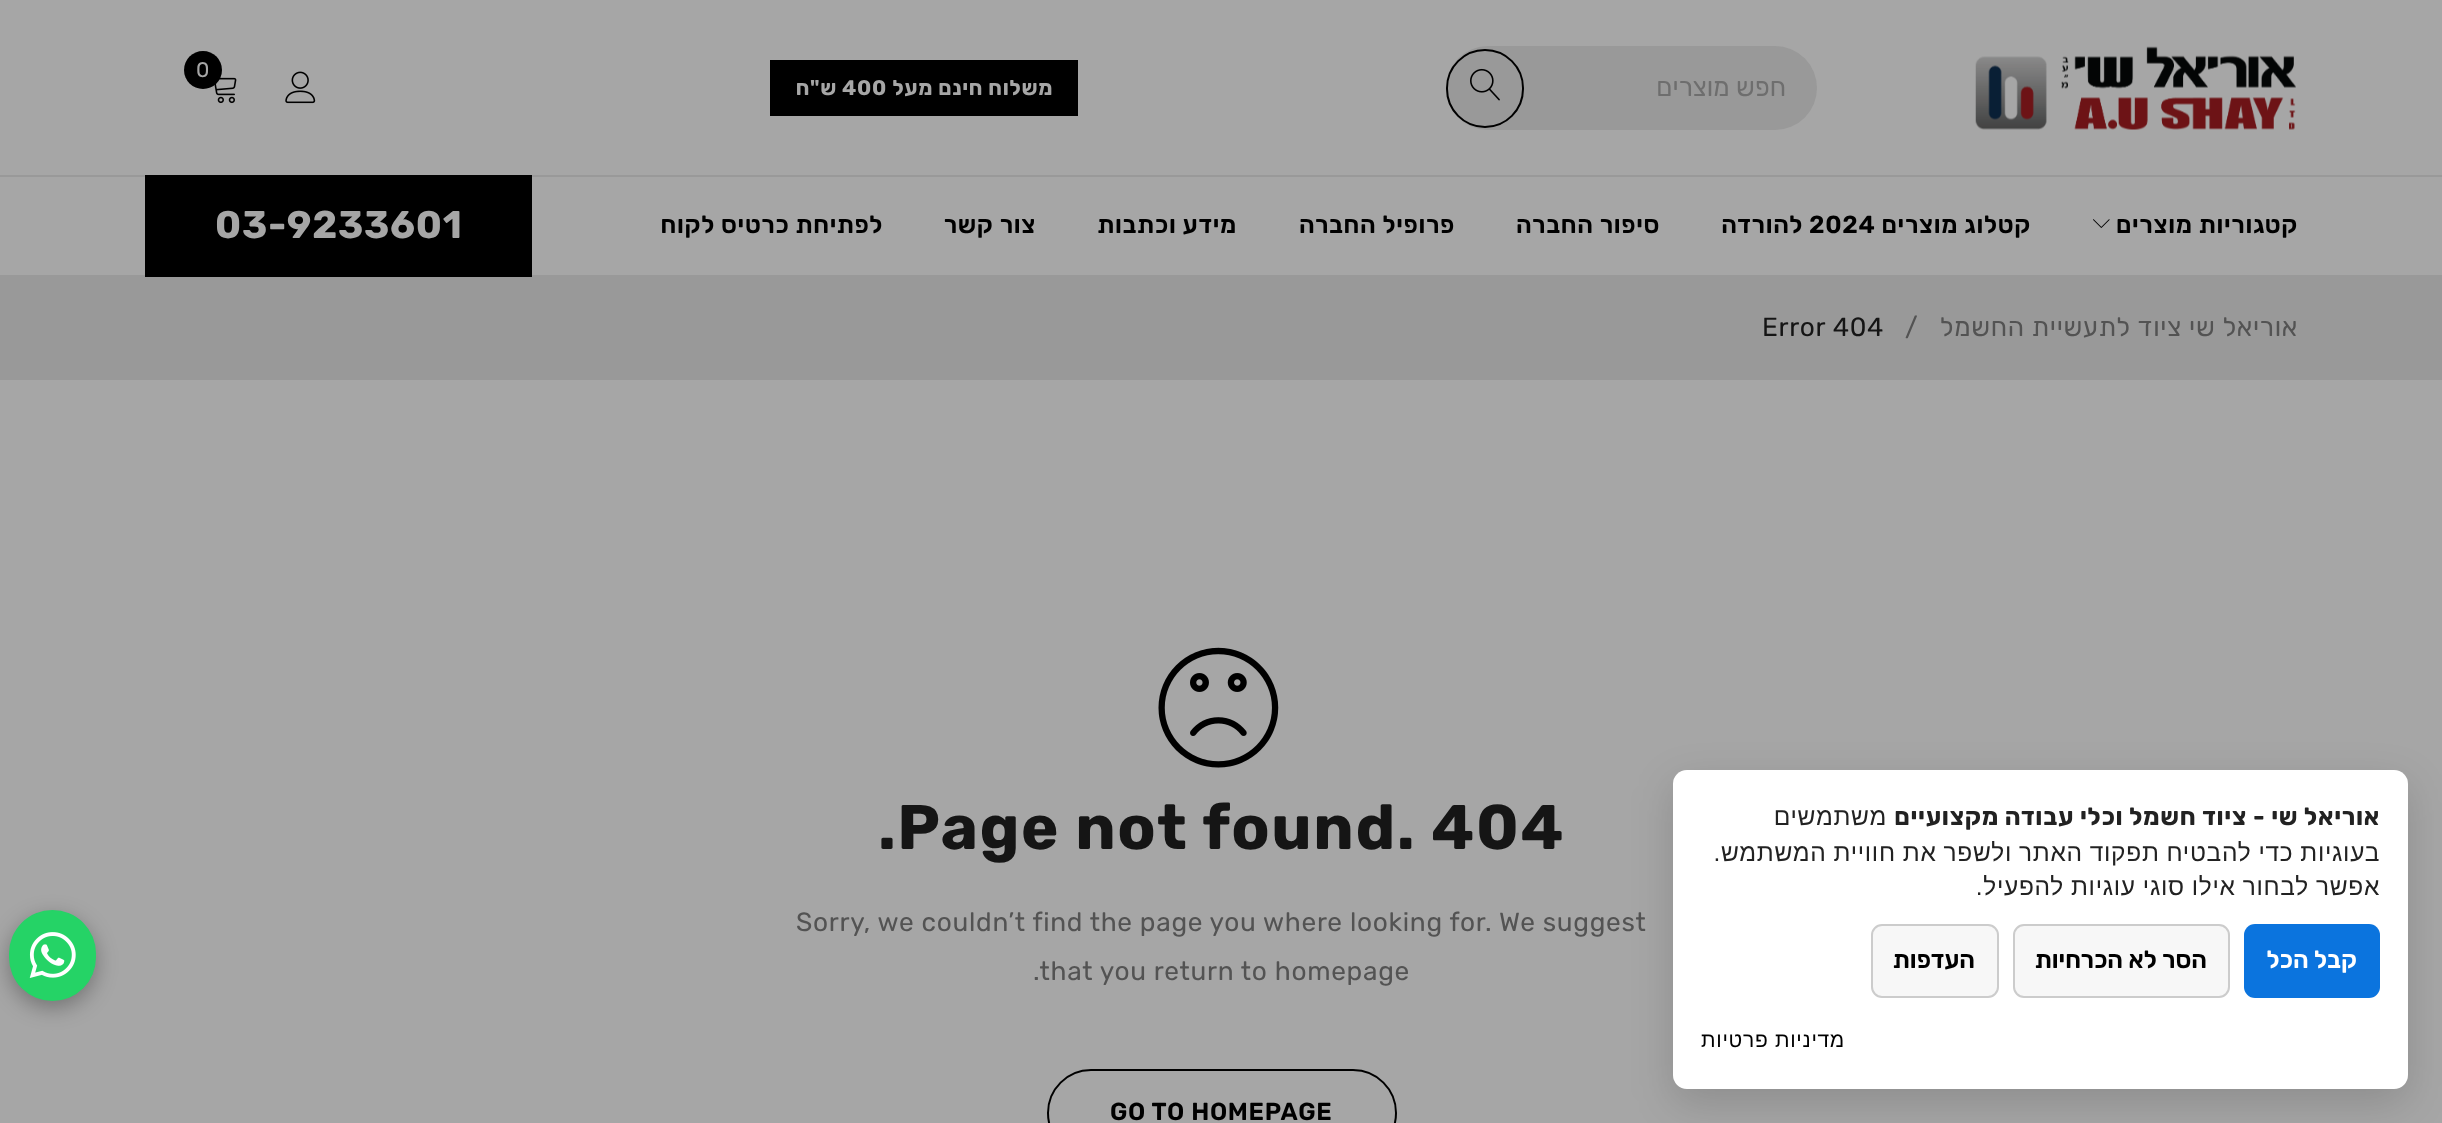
async function draw(canvas) {
  canvas.width = 2442;
  canvas.height = 1123;
  const ctx = canvas.getContext('2d');
  ctx.miterLimit = 4;
  ctx.fontKerning = 'normal';
  function label(s, x, y, font, color) {
    ctx.font = font;
    ctx.fillStyle = color;
    ctx.fillText(s, x, y);
  }
  function rect(x, y, w, h, color) {
    ctx.fillStyle = color;
    ctx.fillRect(x, y, w, h);
  }
  function roundedRect(x, y, w, h, r, color) {
    ctx.fillStyle = color;
    ctx.beginPath();
    ctx.roundRect(x, y, w, h, r);
    ctx.fill();
  }
  async function image(src, x, y, w, h) {
    const img = new Image();
    img.src = src;
    await img.decode();
    ctx.drawImage(img, x, y, w, h);
  }

  rect(0, 0, 2442, 1123, '#a6a6a6');
  rect(0, 175, 2442, 2, '#999');
  await image('assets/img1.png', 1975, 46, 321, 84);
  await image('assets/img2.png', 285, 71, 31, 33);
  await image('assets/img3.png', 214, 77, 23, 27);
  ctx.fillStyle = '#000';
  ctx.beginPath();
  ctx.arc(203, 70, 19, 0, 2 * Math.PI);
  ctx.fill();
  ctx.letterSpacing = '0.7px';
  label('0', 196, 77, '21px Rubik', '#a6a6a6');
  roundedRect(1446, 46, 371, 84, 42, '#999');
  ctx.letterSpacing = '0px';
  ctx.direction = 'rtl';
  label('חפש מוצרים', 1786, 96, '26.25px Rubik', '#6e6e6e');
  ctx.beginPath();
  ctx.roundRect(1447, 50, 76, 77, 38);
  ctx.strokeStyle = '#000';
  ctx.lineWidth = 2;
  ctx.stroke();
  await image('assets/img4.png', 1470, 68, 30, 33);
  rect(770, 60, 308, 56, '#000');
  ctx.letterSpacing = '0.7px';
  label('משלוח חינם מעל', 1053, 95, 'bold 21px Rubik', '#a6a6a6');
  ctx.direction = 'ltr';
  label('400', 842, 95, 'bold 21px Rubik', '#a6a6a6');
  ctx.direction = 'rtl';
  label('ש"ח', 837, 95, 'bold 21px Rubik', '#a6a6a6');
  label('קטגוריות מוצרים', 2298, 233, '600 24.5px Rubik', '#000');
  await image('assets/img5.png', 2093, 219, 17, 9);
  label('קטלוג מוצרים', 2031, 233, '600 24.5px Rubik', '#000');
  ctx.direction = 'ltr';
  label('2024', 1809, 233, '600 24.5px Rubik', '#000');
  ctx.direction = 'rtl';
  label('להורדה', 1803, 233, '600 24.5px Rubik', '#000');
  label('סיפור החברה', 1660, 233, '600 24.5px Rubik', '#000');
  label('פרופיל החברה', 1455, 233, '600 24.5px Rubik', '#000');
  label('מידע וכתבות', 1237, 233, '600 24.5px Rubik', '#000');
  label('צור קשר', 1036, 233, '600 24.5px Rubik', '#000');
  label('לפתיחת כרטיס לקוח', 883, 233, '600 24.5px Rubik', '#000');
  rect(0, 275, 2442, 105, '#999');
  rect(145, 175, 387, 102, '#000');
  ctx.direction = 'ltr';
  label('03-9233601', 215, 238, 'bold 38.5px Rubik', '#a6a6a6');
  ctx.direction = 'rtl';
  label('אוריאל שי ציוד לתעשיית החשמל', 2298, 336, '26.25px Rubik', '#535353');
  ctx.direction = 'ltr';
  label('/', 1905, 336, '26.25px Rubik', '#535353');
  label('Error 404', 1762, 336, '26.25px Rubik', '#151515');
  await image('assets/img6.png', 1158, 647, 121, 121);
  ctx.letterSpacing = '1.6px';
  label('.Page not found. 404', 878, 849, 'bold 63px Rubik', '#151515');
  ctx.letterSpacing = '0.7px';
  label('Sorry, we couldn’t find the page you where looking for. We suggest', 796, 931, '26.25px Rubik', '#535353');
  label('.that you return to homepage', 1033, 980, '26.25px Rubik', '#535353');
  ctx.beginPath();
  ctx.roundRect(1048, 1070, 348, 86, 43);
  ctx.stroke();
  label('GO TO HOMEPAGE', 1110, 1120, '600 24.5px Rubik', '#000');
  ctx.fillStyle = '#00000026';
  ctx.filter = 'blur(21px)';
  ctx.beginPath();
  ctx.roundRect(1673, 784, 735, 319, 14);
  ctx.fill();
  ctx.filter = 'none';
  roundedRect(1673, 770, 735, 319, 14, '#fff');
  ctx.direction = 'rtl';
  label('אוריאל שי - ציוד חשמל וכלי עבודה מקצועיים', 2380, 825, 'bold 24.5px Rubik', '#222');
  label('משתמשים', 1887, 825, '24.5px Liberation Sans', '#222');
  ctx.wordSpacing = '-0.5px';
  label('בעוגיות כדי להבטיח תפקוד האתר ולשפר את חוויית המשתמש.', 2380, 861, '24.5px Liberation Sans', '#222');
  label('אפשר לבחור אילו סוגי עוגיות להפעיל.', 2380, 895, '24.5px Liberation Sans', '#222');
  roundedRect(2244, 924, 136, 74, 11, '#0b74de');
  ctx.letterSpacing = '0px';
  ctx.wordSpacing = '0px';
  label('קבל הכל', 2357, 968, '600 24.5px Rubik', '#fff');
  ctx.fillStyle = '#f7f7f7';
  ctx.beginPath();
  ctx.roundRect(2014, 925, 215, 72, 10);
  ctx.fill();
  ctx.strokeStyle = '#ccc';
  ctx.stroke();
  label('הסר לא הכרחיות', 2207, 968, '600 24.5px Rubik', '#000');
  ctx.fillStyle = '#f7f7f7';
  ctx.beginPath();
  ctx.roundRect(1872, 925, 126, 72, 10);
  ctx.fill();
  ctx.stroke();
  label('העדפות', 1975, 968, '600 24.5px Rubik', '#000');
  ctx.letterSpacing = '0.7px';
  label('מדיניות פרטיות', 1845, 1047, '21px Liberation Sans', '#000');
  ctx.fillStyle = '#0000004d';
  ctx.filter = 'blur(10.5px)';
  ctx.beginPath();
  ctx.roundRect(9, 917, 87, 91, 43.5);
  ctx.fill();
  ctx.filter = 'none';
  roundedRect(9, 910, 87, 91, 43.5, '#25d366');
  await image('assets/img7.png', 29, 932, 47, 46);
}

draw(document.querySelector('canvas'));
